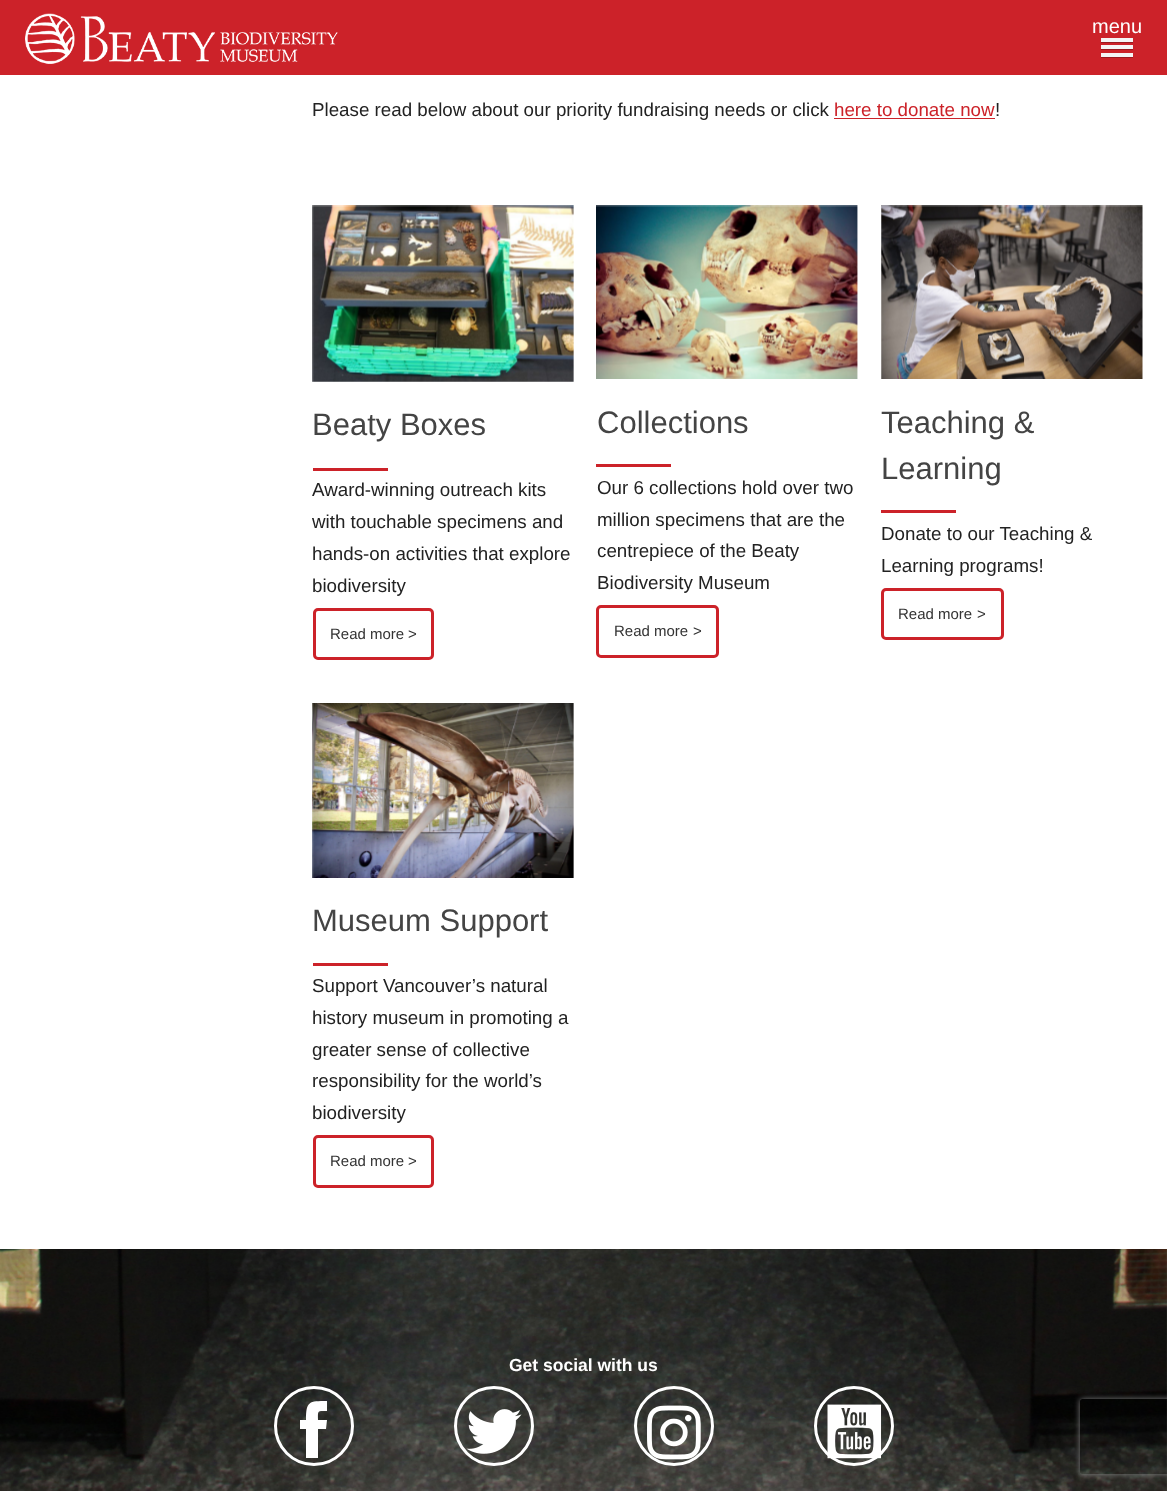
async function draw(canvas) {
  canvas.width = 1167;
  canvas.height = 1491;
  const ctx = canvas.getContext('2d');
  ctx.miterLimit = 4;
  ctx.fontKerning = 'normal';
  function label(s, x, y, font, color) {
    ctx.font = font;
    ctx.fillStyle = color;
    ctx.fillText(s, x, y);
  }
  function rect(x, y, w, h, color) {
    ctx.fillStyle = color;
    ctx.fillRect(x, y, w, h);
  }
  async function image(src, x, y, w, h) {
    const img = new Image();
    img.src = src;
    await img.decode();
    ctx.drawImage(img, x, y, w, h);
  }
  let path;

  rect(0, 0, 1167, 1491, '#fff');
  rect(0, 0, 1167, 75, '#cc2229');
  await image('assets/img1.png', 25, 13, 313, 51);
  label('menu', 1092, 33, '20px Liberation Sans', '#fff');
  ctx.fillStyle = '#991a1f';
  path = new Path2D('M1101 39V43H1133V39H1132.5V41H1101Z');
  ctx.fill(path);
  rect(1101, 38, 32, 4, '#f5f5f5');
  ctx.fillStyle = '#991a1f';
  path = new Path2D('M1101 46V50H1133V46H1132.5V49H1101Z');
  ctx.fill(path);
  rect(1101, 45, 32, 4, '#f5f5f5');
  ctx.fillStyle = '#991a1f';
  path = new Path2D('M1101 54V58H1133V54H1132.5V56H1101Z');
  ctx.fill(path);
  rect(1101, 53, 32, 4, '#f5f5f5');
  label('Please read below about our priority fundraising needs or click', 312, 116, '18.75px Liberation Sans', '#222');
  label('here to donate now', 834, 116, '18.75px Liberation Sans', '#cc2229');
  rect(834, 118, 161, 1, '#cc2229');
  label('!', 995, 116, '18.75px Liberation Sans', '#222');
  await image('assets/img2.png', 312, 205, 262, 177);
  label('Beaty Boxes', 312, 435, '31px Liberation Sans', '#444');
  rect(313, 468, 75, 3, '#cc2229');
  label('Award-winning outreach kits', 312, 496, '18.75px Liberation Sans', '#222');
  label('with touchable specimens and', 312, 528, '18.75px Liberation Sans', '#222');
  label('hands-on activities that explore', 312, 560, '18.75px Liberation Sans', '#222');
  label('biodiversity', 312, 592, '18.75px Liberation Sans', '#222');
  ctx.beginPath();
  ctx.roundRect(314.5, 609.5, 118, 49, 3.5);
  ctx.strokeStyle = '#cc2229';
  ctx.lineWidth = 3;
  ctx.stroke();
  label('Read more', 330, 639, '15px Liberation Sans', '#333');
  label('>', 408, 639, '15px Liberation Sans', '#333');
  await image('assets/img3.png', 596, 205, 262, 174);
  label('Collections', 597, 433, '31px Liberation Sans', '#444');
  rect(596, 464, 75, 3, '#cc2229');
  label('Our 6 collections hold over two', 597, 494, '18.75px Liberation Sans', '#222');
  label('million specimens that are the', 597, 526, '18.75px Liberation Sans', '#222');
  label('centrepiece of the Beaty', 597, 557, '18.75px Liberation Sans', '#222');
  label('Biodiversity Museum', 597, 589, '18.75px Liberation Sans', '#222');
  ctx.beginPath();
  ctx.roundRect(597.5, 606.5, 120, 50, 3.5);
  ctx.stroke();
  label('Read more', 614, 636, '15px Liberation Sans', '#333');
  label('>', 693, 636, '15px Liberation Sans', '#333');
  await image('assets/img4.png', 881, 205, 262, 174);
  label('Teaching &', 881, 433, '31px Liberation Sans', '#444');
  label('Learning', 881, 479, '31px Liberation Sans', '#444');
  rect(881, 510, 75, 3, '#cc2229');
  label('Donate to our Teaching &', 881, 540, '18.75px Liberation Sans', '#222');
  label('Learning programs!', 881, 572, '18.75px Liberation Sans', '#222');
  ctx.beginPath();
  ctx.roundRect(882.5, 589.5, 120, 49, 3.5);
  ctx.stroke();
  label('Read more', 898, 619, '15px Liberation Sans', '#333');
  label('>', 977, 619, '15px Liberation Sans', '#333');
  await image('assets/img5.png', 312, 703, 262, 175);
  label('Museum Support', 312, 931, '31px Liberation Sans', '#444');
  rect(313, 963, 75, 3, '#cc2229');
  label('Support Vancouver’s natural', 312, 992, '18.75px Liberation Sans', '#222');
  label('history museum in promoting a', 312, 1024, '18.75px Liberation Sans', '#222');
  label('greater sense of collective', 312, 1056, '18.75px Liberation Sans', '#222');
  label('responsibility for the world’s', 312, 1087, '18.75px Liberation Sans', '#222');
  label('biodiversity', 312, 1119, '18.75px Liberation Sans', '#222');
  ctx.beginPath();
  ctx.roundRect(314.5, 1136.5, 118, 50, 3.5);
  ctx.stroke();
  label('Read more', 330, 1166, '15px Liberation Sans', '#333');
  label('>', 408, 1166, '15px Liberation Sans', '#333');
  await image('assets/img6.png', 0, 1249, 1167, 242);
  label('Get social with us', 509, 1371, 'bold 17.5px Liberation Sans', '#fff');
  ctx.beginPath();
  ctx.arc(314, 1426, 38.5, 0, 2 * Math.PI);
  ctx.strokeStyle = '#fff';
  ctx.stroke();
  path = new Path2D('M318 1420H327L326 1429H318V1458H306V1429H300V1420H306C306 1401 309 1401 327 1401V1411C317 1411 318 1410 318 1420Z');
  ctx.fill(path);
  ctx.beginPath();
  ctx.arc(494, 1426, 38.5, 0, 2 * Math.PI);
  ctx.stroke();
  await image('assets/img7.png', 466, 1409, 56, 45);
  ctx.beginPath();
  ctx.arc(674, 1426, 38.5, 0, 2 * Math.PI);
  ctx.stroke();
  await image('assets/img8.png', 647, 1405, 54, 55);
  ctx.beginPath();
  ctx.arc(854, 1426, 38.5, 0, 2 * Math.PI);
  ctx.stroke();
  await image('assets/img9.png', 827, 1404, 55, 55);
  ctx.save();
  path = new Path2D('M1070 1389H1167V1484H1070ZM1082.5 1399H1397.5C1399 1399 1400 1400 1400 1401.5V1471.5C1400 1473 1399 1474 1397.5 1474H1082.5C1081 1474 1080 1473 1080 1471.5V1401.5C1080 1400 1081 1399 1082.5 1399Z');
  ctx.clip(path, 'evenodd');
  ctx.fillStyle = '#808080';
  ctx.filter = 'blur(3px)';
  ctx.beginPath();
  ctx.roundRect(1080, 1399, 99, 75, 2.5);
  ctx.fill();
  ctx.filter = 'none';
  ctx.restore();
}

draw(document.querySelector('canvas'));
